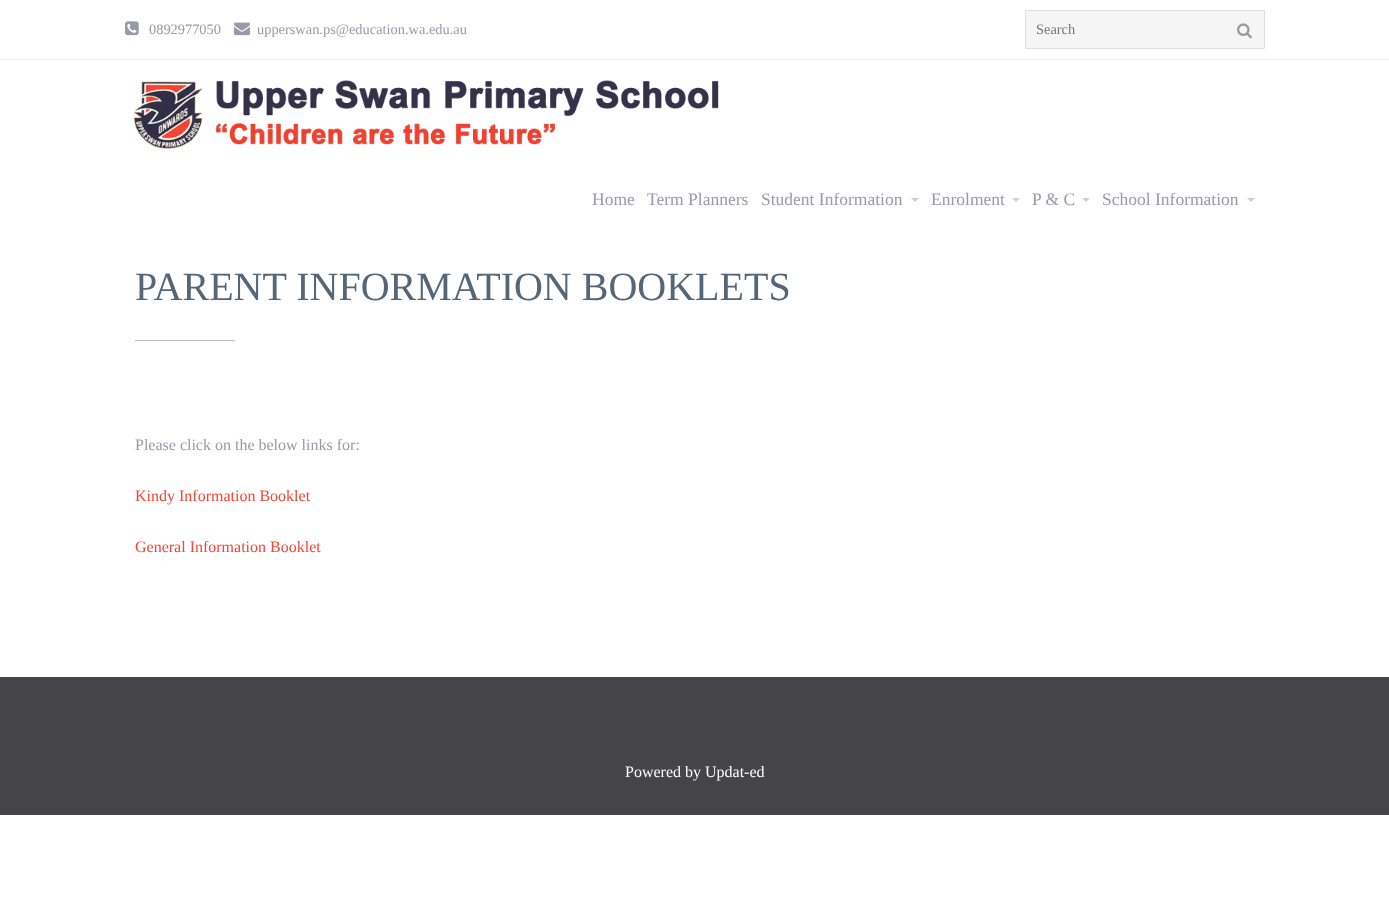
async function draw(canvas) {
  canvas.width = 1389;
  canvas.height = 907;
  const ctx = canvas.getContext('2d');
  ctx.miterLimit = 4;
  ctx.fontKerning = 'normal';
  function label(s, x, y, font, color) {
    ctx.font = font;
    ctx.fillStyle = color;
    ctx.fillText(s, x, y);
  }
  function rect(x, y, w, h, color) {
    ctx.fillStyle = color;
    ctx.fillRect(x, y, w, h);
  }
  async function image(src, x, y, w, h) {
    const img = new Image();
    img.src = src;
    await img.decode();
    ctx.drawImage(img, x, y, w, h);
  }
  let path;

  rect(0, 0, 1389, 907, '#fff');
  rect(0, 59, 1389, 1, '#f0f0f0');
  await image('assets/img1.png', 125, 21, 14, 15);
  label('0892977050', 149, 34, '14.4px Liberation Serif', '#99a');
  await image('assets/img2.png', 234, 22, 16, 14);
  label('upperswan.ps@education.wa.edu.au', 257, 34, '14.4px Liberation Serif', '#99a');
  ctx.fillStyle = '#f5f5f5';
  ctx.beginPath();
  ctx.rect(1025.5, 10.5, 239, 38);
  ctx.fill();
  ctx.strokeStyle = '#ddd';
  ctx.stroke();
  label('Search', 1036, 34, '14.4px Liberation Serif', '#757575');
  await image('assets/img3.png', 1237, 23, 15, 16);
  await image('assets/img4.png', 132, 80, 587, 70);
  label('Home', 592, 205, '17.5px Liberation Serif', '#99a');
  label('Term Planners', 647, 205, '17.5px Liberation Serif', '#99a');
  label('Student Information', 761, 205, '17.5px Liberation Serif', '#99a');
  ctx.fillStyle = '#cfcfcf';
  path = new Path2D('M911 198H919L915 202Z');
  ctx.fill(path);
  label('Enrolment', 931, 205, '17.5px Liberation Serif', '#99a');
  ctx.fillStyle = '#cfcfcf';
  path = new Path2D('M1012 198H1020L1016 202Z');
  ctx.fill(path);
  label('P & C', 1032, 205, '17.5px Liberation Serif', '#99a');
  ctx.fillStyle = '#cfcfcf';
  path = new Path2D('M1082 198H1090L1086 202Z');
  ctx.fill(path);
  label('School Information', 1102, 205, '17.5px Liberation Serif', '#99a');
  ctx.fillStyle = '#cfcfcf';
  path = new Path2D('M1247 198H1255L1251 202Z');
  ctx.fill(path);
  label('PARENT INFORMATION BOOKLETS', 135, 300, '40px Liberation Serif', '#567');
  rect(135, 340, 100, 1, '#bbb');
  label('Please click on the below links for:', 135, 450, '16px Liberation Serif', '#99a');
  label('Kindy Information Booklet', 135, 501, '16px Liberation Serif', '#f24537');
  label('General Information Booklet', 135, 552, '16px Liberation Serif', '#f24537');
  rect(0, 677, 1389, 138, '#444449');
  label('Powered by Updat-ed', 625, 777, '16px Liberation Serif', '#fff');
}

draw(document.querySelector('canvas'));
